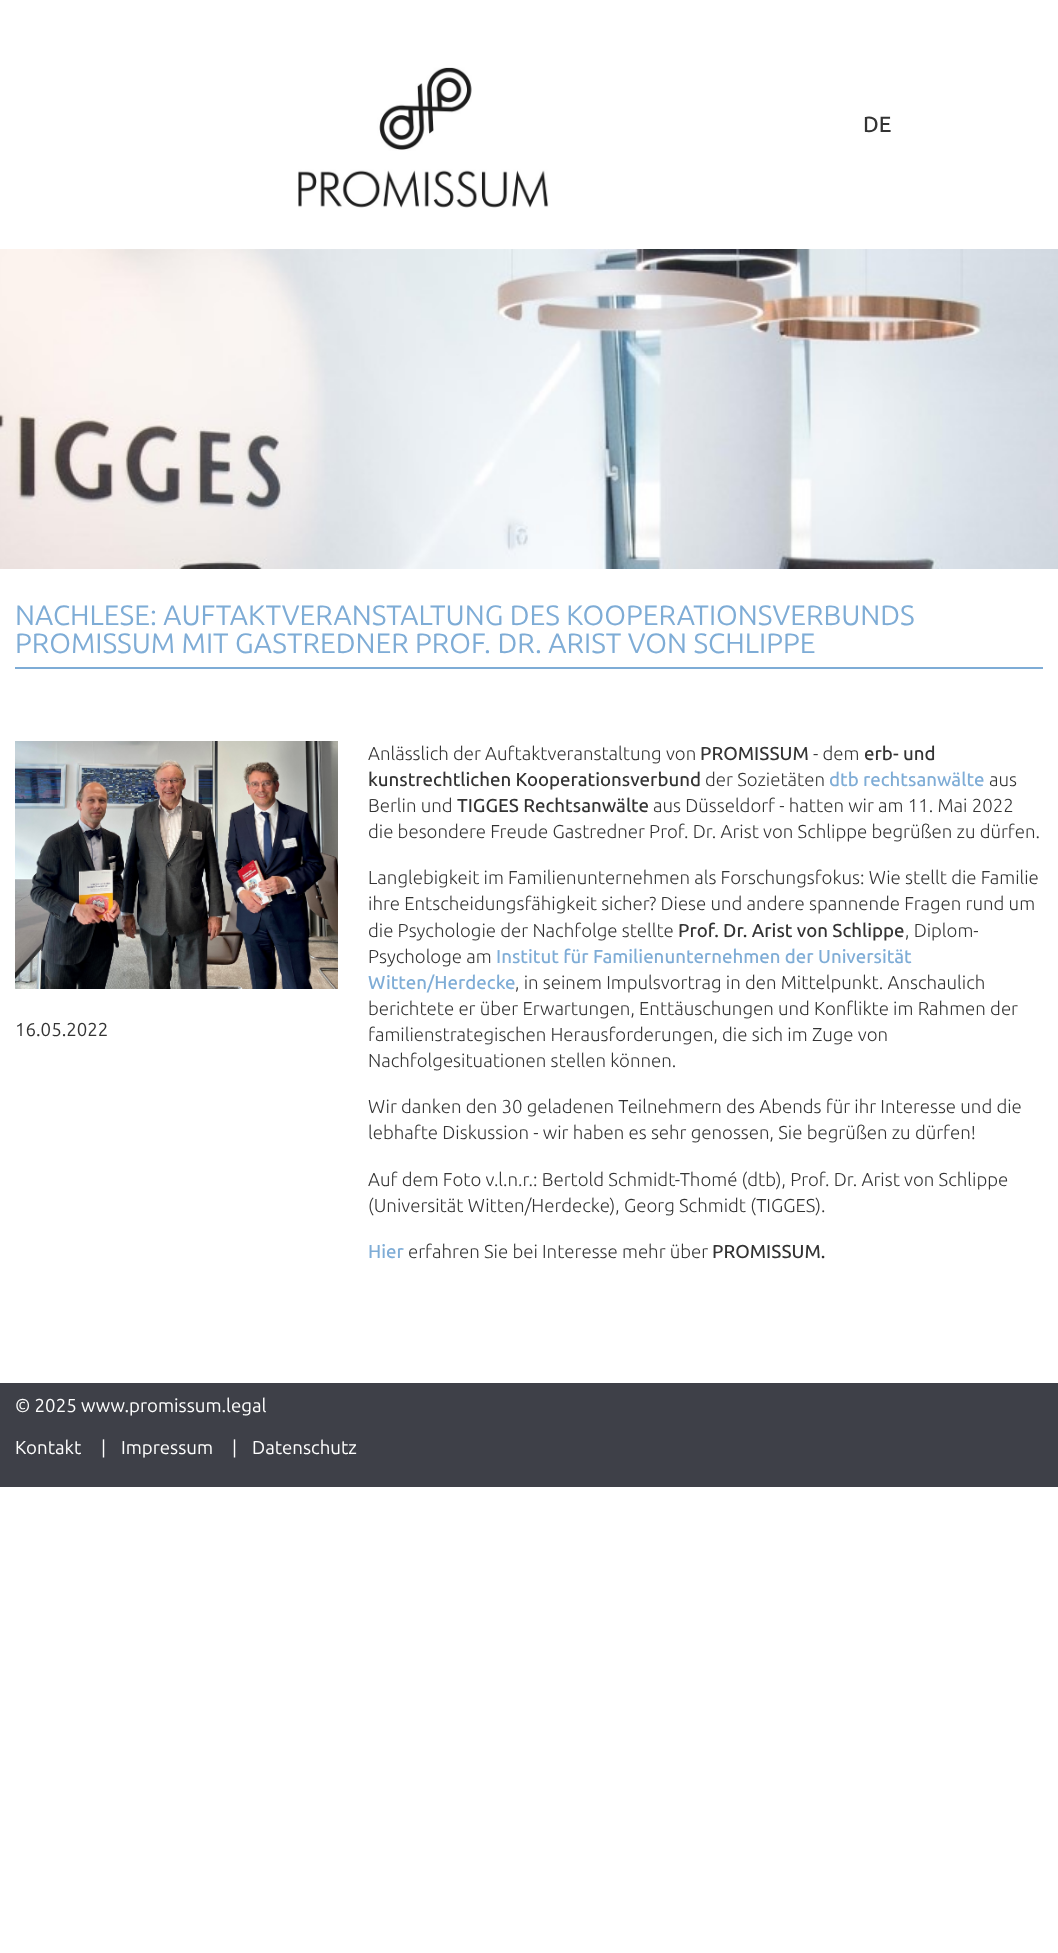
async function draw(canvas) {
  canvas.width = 1058;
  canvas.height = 1953;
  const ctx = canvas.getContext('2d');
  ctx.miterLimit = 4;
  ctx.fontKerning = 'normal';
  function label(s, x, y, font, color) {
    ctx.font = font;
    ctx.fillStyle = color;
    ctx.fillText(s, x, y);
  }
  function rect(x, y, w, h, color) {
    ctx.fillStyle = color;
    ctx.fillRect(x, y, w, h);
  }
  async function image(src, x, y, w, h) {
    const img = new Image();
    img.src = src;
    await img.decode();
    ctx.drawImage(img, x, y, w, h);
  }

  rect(0, 0, 1058, 1953, '#fff');
  await image('assets/img1.png', 298, 67, 251, 141);
  label('DE', 863, 132, '500 22px Ubuntu', '#333');
  await image('assets/img2.png', 0, 249, 1058, 320);
  rect(15, 667, 1028, 2, '#7eacd6');
  label('NACHLESE: AUFTAKTVERANSTALTUNG DES KOOPERATIONSVERBUNDS', 15, 625, '28px Ubuntu', '#7eacd6');
  label('PROMISSUM MIT GASTREDNER PROF. DR. ARIST VON SCHLIPPE', 15, 653, '28px Ubuntu', '#7eacd6');
  await image('assets/img3.png', 15, 741, 323, 248);
  label('16.05.2022', 15, 1036, '18.65px Ubuntu', '#333');
  label('Anlässlich der Auftaktveranstaltung von', 368, 760, '300 18.65px Ubuntu', '#333');
  label('PROMISSUM', 700, 760, '500 18.65px Ubuntu', '#333');
  label('- dem', 813, 760, '300 18.65px Ubuntu', '#333');
  label('erb- und', 864, 760, '500 18.65px Ubuntu', '#333');
  label('kunstrechtlichen Kooperationsverbund', 368, 786, '500 18.65px Ubuntu', '#333');
  label('der Sozietäten', 705, 786, '300 18.65px Ubuntu', '#333');
  label('dtb rechtsanwälte', 829, 786, '500 18.65px Ubuntu', '#7eacd6');
  label('aus', 989, 786, '300 18.65px Ubuntu', '#333');
  label('Berlin und', 368, 812, '300 18.65px Ubuntu', '#333');
  label('TIGGES Rechtsanwälte', 457, 812, '500 18.65px Ubuntu', '#333');
  label('aus Düsseldorf - hatten wir am 11. Mai 2022', 653, 812, '300 18.65px Ubuntu', '#333');
  label('die besondere Freude Gastredner Prof. Dr. Arist von Schlippe begrüßen zu dürfen.', 368, 838, '300 18.65px Ubuntu', '#333');
  label('Langlebigkeit im Familienunternehmen als Forschungsfokus: Wie stellt die Familie', 368, 884, '300 18.65px Ubuntu', '#333');
  label('ihre Entscheidungsfähigkeit sicher? Diese und andere spannende Fragen rund um', 368, 910, '300 18.65px Ubuntu', '#333');
  label('die Psychologie der Nachfolge stellte', 368, 937, '300 18.65px Ubuntu', '#333');
  label('Prof. Dr. Arist von Schlippe', 678, 937, '500 18.65px Ubuntu', '#333');
  label(', Diplom-', 905, 937, '300 18.65px Ubuntu', '#333');
  label('Psychologe am', 368, 963, '300 18.65px Ubuntu', '#333');
  label('Institut für Familienunternehmen der Universität', 496, 963, '500 18.65px Ubuntu', '#7eacd6');
  label('Witten/Herdecke', 368, 989, '500 18.65px Ubuntu', '#7eacd6');
  label(', in seinem Impulsvortrag in den Mittelpunkt. Anschaulich', 515, 989, '300 18.65px Ubuntu', '#333');
  label('berichtete er über Erwartungen, Enttäuschungen und Konflikte im Rahmen der', 368, 1015, '300 18.65px Ubuntu', '#333');
  label('familienstrategischen Herausforderungen, die sich im Zuge von', 368, 1041, '300 18.65px Ubuntu', '#333');
  label('Nachfolgesituationen stellen können.', 368, 1067, '300 18.65px Ubuntu', '#333');
  label('Wir danken den 30 geladenen Teilnehmern des Abends für ihr Interesse und die', 368, 1113, '300 18.65px Ubuntu', '#333');
  label('lebhafte Diskussion - wir haben es sehr genossen, Sie begrüßen zu dürfen!', 368, 1139, '300 18.65px Ubuntu', '#333');
  label('Auf dem Foto v.l.n.r.: Bertold Schmidt-Thomé (dtb), Prof. Dr. Arist von Schlippe', 368, 1186, '300 18.65px Ubuntu', '#333');
  label('(Universität Witten/Herdecke), Georg Schmidt (TIGGES).', 368, 1212, '300 18.65px Ubuntu', '#333');
  label('Hier', 368, 1258, '500 18.65px Ubuntu', '#7eacd6');
  label('erfahren Sie bei Interesse mehr über', 408, 1258, '300 18.65px Ubuntu', '#333');
  label('PROMISSUM.', 712, 1258, '500 18.65px Ubuntu', '#333');
  rect(0, 1383, 1058, 104, '#3e4048');
  label('© 2025 www.promissum.legal', 15, 1412, '18.65px Ubuntu', '#fefefe');
  label('Kontakt', 15, 1454, '18.65px Ubuntu', '#fefefe');
  label('|', 101, 1454, '18.65px Ubuntu', '#fefefe');
  label('Impressum', 121, 1454, '18.65px Ubuntu', '#fefefe');
  label('|', 232, 1454, '18.65px Ubuntu', '#fefefe');
  label('Datenschutz', 252, 1454, '18.65px Ubuntu', '#fefefe');
}

draw(document.querySelector('canvas'));
